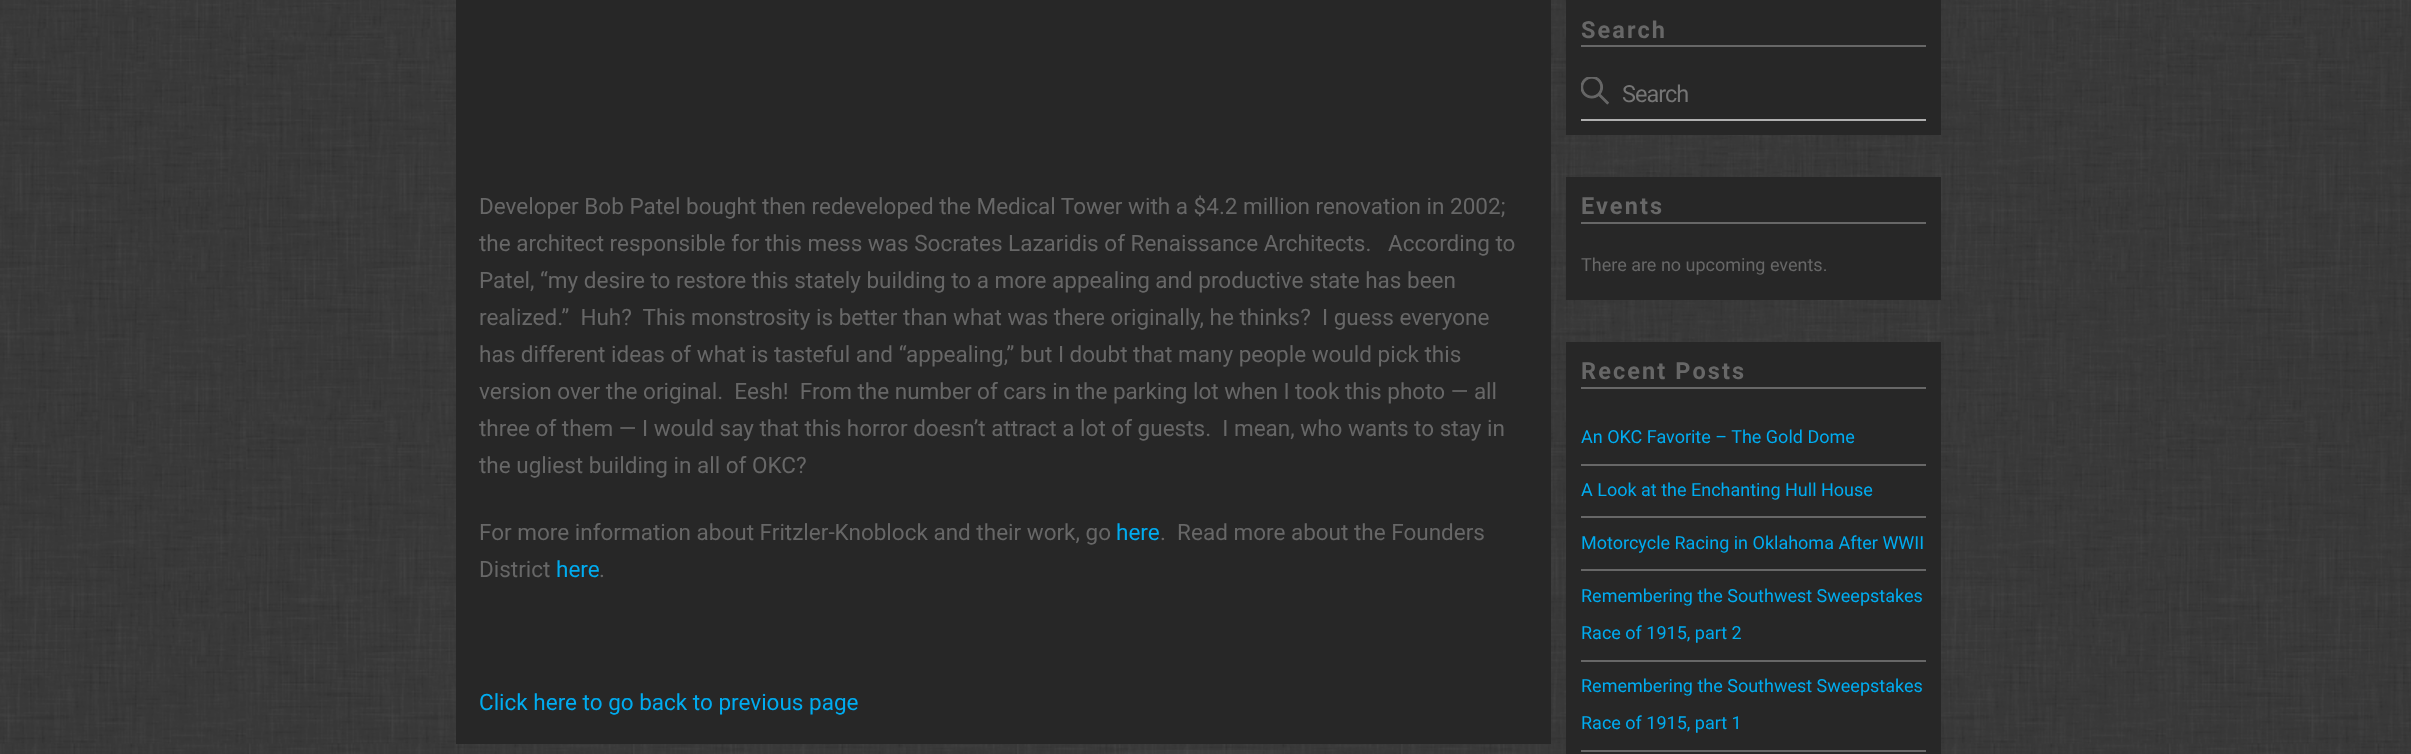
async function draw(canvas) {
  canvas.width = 2411;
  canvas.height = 754;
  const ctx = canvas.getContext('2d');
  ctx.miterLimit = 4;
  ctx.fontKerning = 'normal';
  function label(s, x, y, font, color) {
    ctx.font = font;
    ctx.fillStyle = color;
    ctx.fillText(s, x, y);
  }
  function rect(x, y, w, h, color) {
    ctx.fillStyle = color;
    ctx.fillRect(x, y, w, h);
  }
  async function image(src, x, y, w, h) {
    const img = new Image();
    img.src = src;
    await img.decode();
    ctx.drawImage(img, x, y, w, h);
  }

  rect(0, 0, 2411, 754, '#fff');
  await image('assets/img1.png', 0, 0, 2411, 744);
  await image('assets/img3.png', 0, 743, 2411, 11);
  rect(456, 0, 1095, 744, '#272727');
  label('Developer Bob Patel bought then redeveloped the Medical Tower with a $4.2 million renovation in 2002;', 479, 214, '22.5px Roboto', '#676767');
  label('the architect responsible for this mess was Socrates Lazaridis of Renaissance Architects.   According to', 479, 251, '22.5px Roboto', '#676767');
  label('Patel, “my desire to restore this stately building to a more appealing and productive state has been', 479, 288, '22.5px Roboto', '#676767');
  label('realized.”  Huh?  This monstrosity is better than what was there originally, he thinks?  I guess everyone', 479, 325, '22.5px Roboto', '#676767');
  label('has different ideas of what is tasteful and “appealing,” but I doubt that many people would pick this', 479, 362, '22.5px Roboto', '#676767');
  label('version over the original.  Eesh!  From the number of cars in the parking lot when I took this photo — all', 479, 399, '22.5px Roboto', '#676767');
  label('three of them — I would say that this horror doesn’t attract a lot of guests.  I mean, who wants to stay in', 479, 436, '22.5px Roboto', '#676767');
  label('the ugliest building in all of OKC?', 479, 473, '22.5px Roboto', '#676767');
  label('For more information about Fritzler-Knoblock and their work, go', 479, 540, '22.5px Roboto', '#676767');
  label('here', 1116, 540, '22.5px Roboto', '#00acf0');
  label('.  Read more about the Founders', 1160, 540, '22.5px Roboto', '#676767');
  label('District', 479, 577, '22.5px Roboto', '#676767');
  label('here', 556, 577, '22.5px Roboto', '#00acf0');
  label('.', 599, 577, '22.5px Roboto', '#676767');
  label('Click here to go back to previous page', 479, 710, '22.5px Roboto', '#00acf0');
  rect(1566, 0, 375, 135, '#272727');
  rect(1581, 45, 345, 2, '#676767');
  ctx.letterSpacing = '2.1px';
  label('Search', 1581, 38, 'bold 23.5px Roboto', '#676767');
  rect(1581, 119, 345, 2, '#b0b0b0');
  await image('assets/img2.png', 1581, 77, 28, 28);
  ctx.letterSpacing = '-1px';
  label('Search', 1622, 102, '23.5px Roboto', '#757575');
  rect(1566, 177, 375, 123, '#272727');
  rect(1581, 222, 345, 2, '#676767');
  ctx.letterSpacing = '2.1px';
  label('Events', 1581, 214, 'bold 23.5px Roboto', '#676767');
  ctx.letterSpacing = '0px';
  label('There are no upcoming events.', 1581, 271, '18px Roboto', '#676767');
  rect(1566, 342, 375, 412, '#272727');
  rect(1581, 387, 345, 2, '#676767');
  ctx.letterSpacing = '2.1px';
  label('Recent Posts', 1581, 379, 'bold 23.5px Roboto', '#676767');
  rect(1581, 464, 345, 2, '#676767');
  ctx.letterSpacing = '0px';
  label('An OKC Favorite – The Gold Dome', 1581, 443, '18px Roboto', '#00acf0');
  rect(1581, 516, 345, 2, '#676767');
  label('A Look at the Enchanting Hull House', 1581, 496, '18px Roboto', '#00acf0');
  rect(1581, 569, 345, 2, '#676767');
  label('Motorcycle Racing in Oklahoma After WWII', 1581, 549, '18px Roboto', '#00acf0');
  rect(1581, 660, 345, 2, '#676767');
  label('Remembering the Southwest Sweepstakes', 1581, 602, '18px Roboto', '#00acf0');
  label('Race of 1915, part 2', 1581, 639, '18px Roboto', '#00acf0');
  rect(1581, 750, 345, 2, '#676767');
  label('Remembering the Southwest Sweepstakes', 1581, 692, '18px Roboto', '#00acf0');
  label('Race of 1915, part 1', 1581, 729, '18px Roboto', '#00acf0');
  await image('assets/img4.png', 1124, 750, 161, 4);
}

draw(document.querySelector('canvas'));
